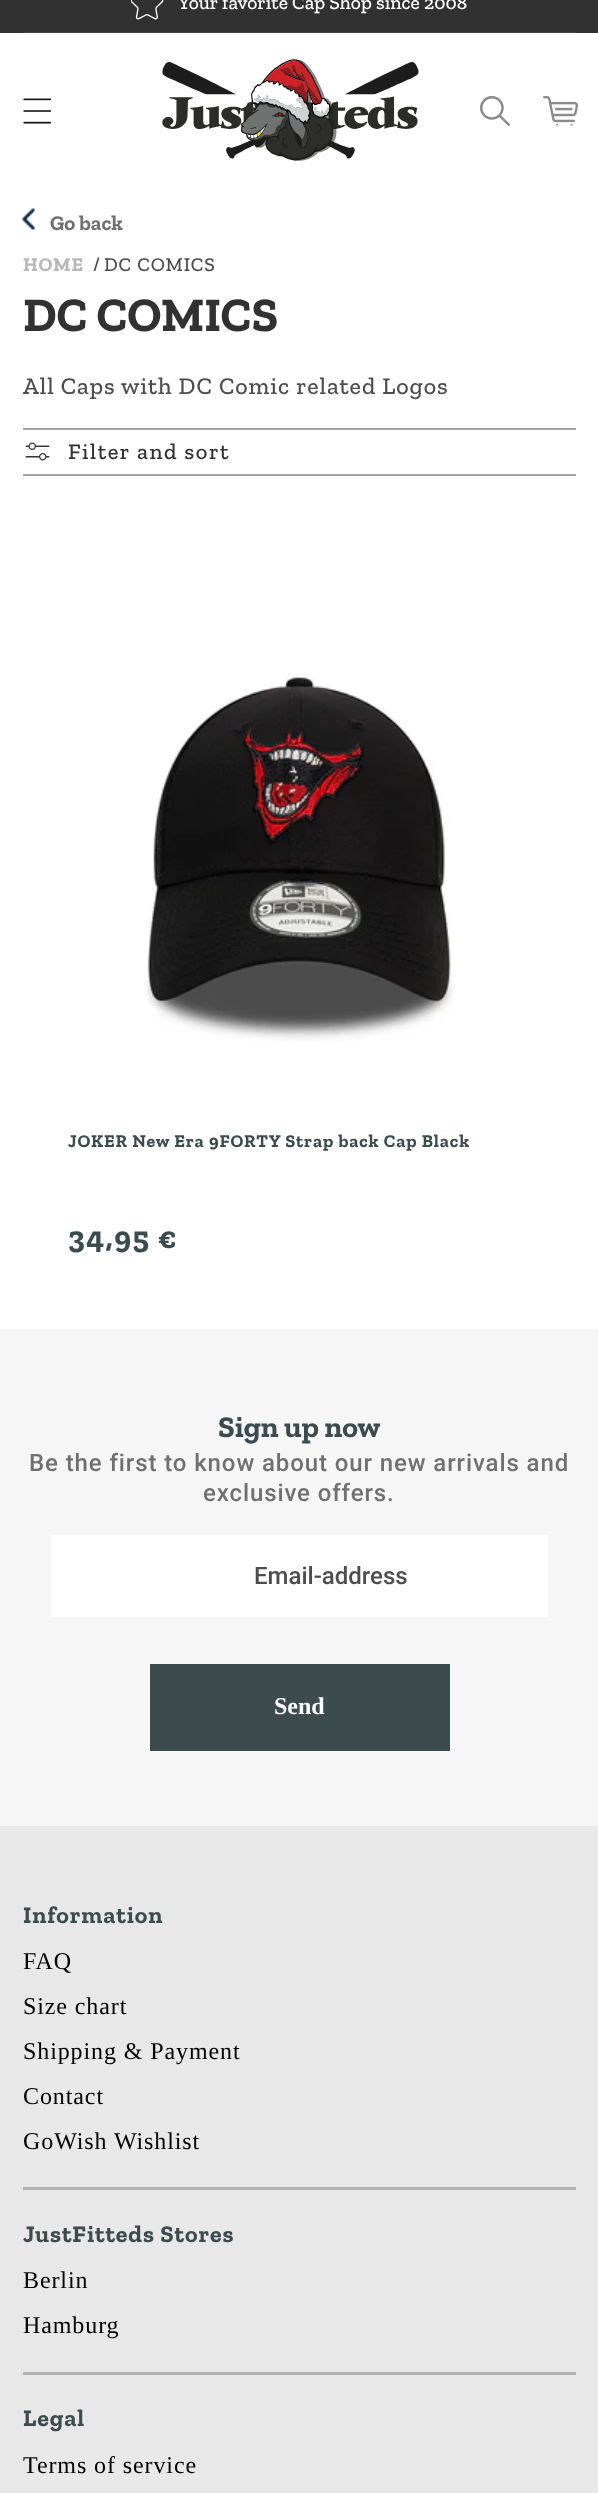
async function draw(canvas) {
  canvas.width = 598;
  canvas.height = 2493;
  const ctx = canvas.getContext('2d');
  ctx.miterLimit = 4;
  ctx.fontKerning = 'normal';
  function label(s, x, y, font, color) {
    ctx.font = font;
    ctx.fillStyle = color;
    ctx.fillText(s, x, y);
  }
  function rect(x, y, w, h, color) {
    ctx.fillStyle = color;
    ctx.fillRect(x, y, w, h);
  }
  async function image(src, x, y, w, h) {
    const img = new Image();
    img.src = src;
    await img.decode();
    ctx.drawImage(img, x, y, w, h);
  }

  rect(0, 0, 598, 2493, '#fff');
  rect(0, 0, 598, 33, '#313131');
  rect(23, 32, 553, 1, '#414141');
  await image('assets/img1.png', 131, 0, 33, 20);
  label('Your favorite Cap Shop since 2008', 178, 9, '500 19.5px Zilla Slab', '#fff');
  await image('assets/img2.png', 23, 98, 29, 26);
  await image('assets/img3.png', 162, 59, 257, 102);
  await image('assets/img4.png', 480, 96, 30, 30);
  await image('assets/img5.png', 543, 96, 36, 30);
  await image('assets/img6.png', 22, 208, 13, 22);
  label('Go back', 50, 230, 'bold 21px Zilla Slab', '#707070');
  ctx.letterSpacing = '0.9px';
  label('HOME', 23, 271, 'bold 19.5px Zilla Slab', '#b8b8b8');
  label('/', 93, 271, '500 19.5px Zilla Slab', '#4d4d4d');
  label('DC COMICS', 104, 271, '500 19.5px Zilla Slab', '#4d4d4d');
  ctx.letterSpacing = '0px';
  label('DC COMICS', 23, 331, 'bold 48px Zilla Slab', '#313131');
  ctx.letterSpacing = '0.9px';
  label('All Caps with DC Comic related Logos', 23, 394, '500 24px Zilla Slab', '#4d4d4d');
  rect(23, 428, 553, 2, '#a1a1a1');
  rect(23, 474, 553, 2, '#a1a1a1');
  await image('assets/img7.png', 25, 442, 25, 19);
  ctx.letterSpacing = '1.5px';
  label('Filter and sort', 68, 459, '500 22.5px Zilla Slab', '#313131');
  await image('assets/img8.png', 144, 677, 311, 364);
  ctx.letterSpacing = '0.9px';
  label('JOKER New Era 9FORTY Strap back Cap Black', 68, 1147, 'bold 18px Zilla Slab', '#3c4b4e');
  ctx.letterSpacing = '1.5px';
  label('34,95 €', 68, 1248, 'bold 31.5px Zilla Slab', '#3c4b4e');
  rect(0, 1329, 598, 497, '#f6f6f6');
  ctx.letterSpacing = '0px';
  label('Sign up now', 218, 1437, 'bold 30px Zilla Slab', '#3c4b4e');
  ctx.letterSpacing = '0.9px';
  label('Be the first to know about our new arrivals and', 29, 1471, '500 24px Roboto', '#707070');
  label('exclusive offers.', 203, 1501, '500 24px Roboto', '#707070');
  rect(51, 1535, 497, 82, '#fff');
  ctx.letterSpacing = '0px';
  label('Email-address', 254, 1584, '500 24px Roboto', '#4d4d4d');
  rect(150, 1664, 300, 87, '#3c4b4e');
  label('Send', 274, 1714, 'bold 24px Liberation Serif', '#fff');
  rect(0, 1826, 598, 667, '#e8e8e8');
  rect(23, 2187, 553, 3, '#b3b3b3');
  ctx.letterSpacing = '0.9px';
  label('Information', 23, 1923, 'bold 24px Zilla Slab', '#3c4b4e');
  label('FAQ', 23, 1969, '24px Liberation Serif', '#030303');
  label('Size chart', 23, 2014, '24px Liberation Serif', '#030303');
  label('Shipping & Payment', 23, 2059, '24px Liberation Serif', '#030303');
  label('Contact', 23, 2104, '24px Liberation Serif', '#030303');
  label('GoWish Wishlist', 23, 2149, '24px Liberation Serif', '#030303');
  rect(23, 2372, 553, 3, '#b3b3b3');
  label('JustFitteds Stores', 23, 2242, 'bold 24px Zilla Slab', '#3c4b4e');
  label('Berlin', 23, 2288, '24px Liberation Serif', '#030303');
  label('Hamburg', 23, 2333, '24px Liberation Serif', '#030303');
  label('Legal', 23, 2426, 'bold 24px Zilla Slab', '#3c4b4e');
  label('Terms of service', 23, 2473, '24px Liberation Serif', '#030303');
}

draw(document.querySelector('canvas'));
